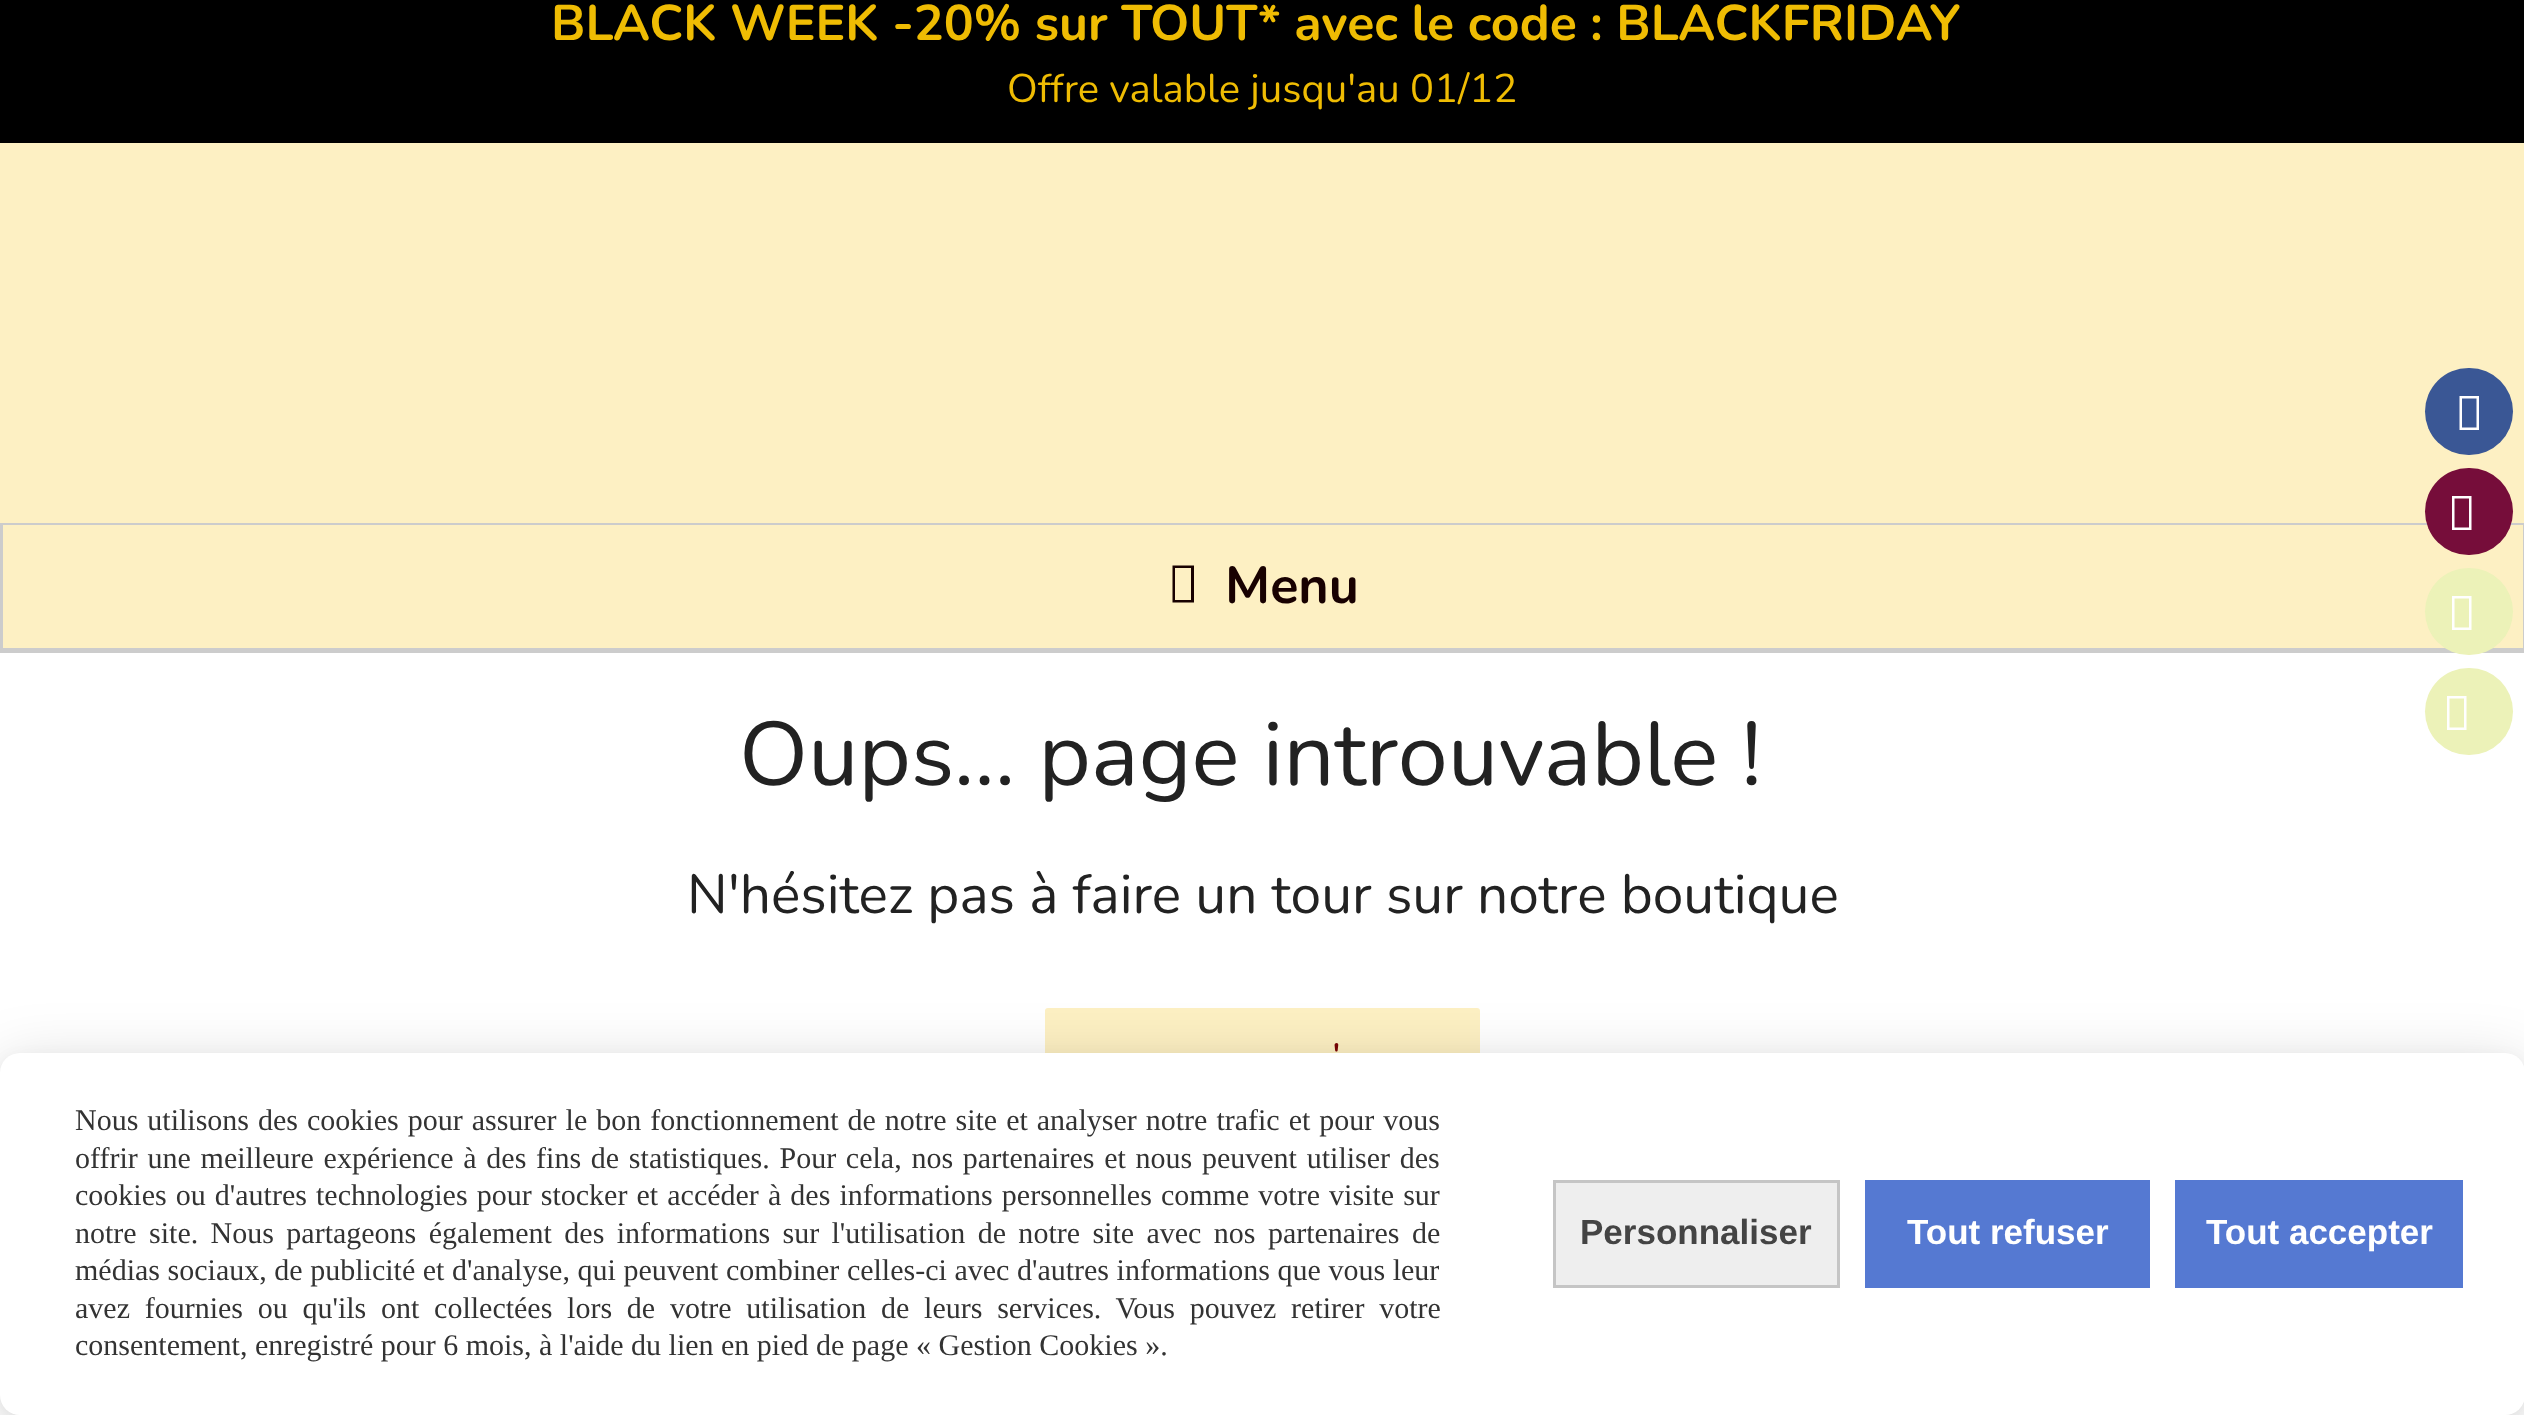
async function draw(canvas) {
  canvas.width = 2524;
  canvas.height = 1415;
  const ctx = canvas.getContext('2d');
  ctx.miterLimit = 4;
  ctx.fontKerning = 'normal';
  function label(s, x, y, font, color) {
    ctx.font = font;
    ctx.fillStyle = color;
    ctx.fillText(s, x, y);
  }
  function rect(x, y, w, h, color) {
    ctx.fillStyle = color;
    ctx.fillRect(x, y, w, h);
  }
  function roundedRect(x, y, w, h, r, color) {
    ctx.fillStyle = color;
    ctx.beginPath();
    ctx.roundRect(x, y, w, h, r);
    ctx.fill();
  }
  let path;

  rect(0, 0, 2524, 1415, '#fff');
  rect(0, 0, 2524, 143, '#000');
  label('BLACK WEEK -20% sur TOUT* avec le code : BLACKFRIDAY', 551, 40, 'bold 50px Nunito', '#efbc03');
  label('Offre valable jusqu\'au 01/12', 1007, 102, '40px Nunito', '#efbc03');
  rect(0, 143, 2524, 380, '#fdf0c3');
  ctx.strokeStyle = '#ccc';
  ctx.lineWidth = 3;
  ctx.strokeRect(1.5, 524.5, 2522, 127);
  rect(3, 525, 2520, 123, '#fdf0c3');
  rect(3, 648, 2520, 2, '#ccc');
  ctx.fillStyle = '#180101';
  path = new Path2D('M1172.5 602.5V565.5H1194V602.5ZM1175 600H1191V568H1175Z');
  ctx.fill(path);
  label('Menu', 1225, 603, 'bold 52px Nunito', '#180101');
  label('Oups... page introuvable !', 739, 785, '90px Nunito', '#222');
  label('N\'hésitez pas à faire un tour sur notre boutique', 687, 913, '55px Nunito', '#222');
  ctx.fillStyle = '#fdf0c3';
  ctx.beginPath();
  ctx.roundRect(1042.5, 1005.5, 440, 97, 5.5);
  ctx.fill();
  ctx.strokeStyle = '#fff';
  ctx.lineWidth = 5;
  ctx.stroke();
  label('\'', 1333, 1063, 'bold 28px Nunito', '#7a0606');
  roundedRect(2425, 368, 88, 87, 43.5, '#3a5795');
  ctx.fillStyle = '#fff';
  path = new Path2D('M2459.5 430V396H2479V430ZM2462 427.5H2476.5V398.5H2462Z');
  ctx.fill(path);
  roundedRect(2425, 468, 88, 87, 43.5, '#760d3a');
  ctx.fillStyle = '#fff';
  path = new Path2D('M2452 530V496H2471.5V530ZM2454.5 527.5H2469V498.5H2454.5Z');
  ctx.fill(path);
  roundedRect(2425, 568, 88, 87, 43.5, '#ecf2b8');
  ctx.fillStyle = '#fff';
  path = new Path2D('M2452 630V596H2471.5V630ZM2454.5 627.5H2469V598.5H2454.5Z');
  ctx.fill(path);
  roundedRect(2425, 668, 88, 87, 43.5, '#ecf2b8');
  ctx.fillStyle = '#fff';
  path = new Path2D('M2447 730V696H2466.5V730ZM2449.5 727.5H2464V698.5H2449.5Z');
  ctx.fill(path);
  ctx.fillStyle = '#0000000d';
  ctx.filter = 'blur(7.5px)';
  ctx.beginPath();
  ctx.roundRect(0, 1058, 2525, 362, 20);
  ctx.fill();
  ctx.filter = 'none';
  ctx.fillStyle = '#00000026';
  ctx.filter = 'blur(30px)';
  ctx.beginPath();
  ctx.roundRect(0, 1063, 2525, 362, 20);
  ctx.fill();
  ctx.filter = 'none';
  roundedRect(0, 1053, 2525, 362, 20, '#fff');
  ctx.wordSpacing = '1.5px';
  label('Nous utilisons des cookies pour assurer le bon fonctionnement de notre site et analyser notre trafic et pour vous', 75, 1130, '30px Liberation Serif', '#333');
  ctx.wordSpacing = '2.25px';
  label('offrir une meilleure expérience à des fins de statistiques. Pour cela, nos partenaires et nous peuvent utiliser des', 75, 1168, '30px Liberation Serif', '#333');
  ctx.wordSpacing = '1.6px';
  label('cookies ou d\'autres technologies pour stocker et accéder à des informations personnelles comme votre visite sur', 75, 1205, '30px Liberation Serif', '#333');
  ctx.wordSpacing = '4.9px';
  label('notre site. Nous partageons également des informations sur l\'utilisation de notre site avec nos partenaires de', 75, 1243, '30px Liberation Serif', '#333');
  ctx.wordSpacing = '0.1px';
  label('médias sociaux, de publicité et d\'analyse, qui peuvent combiner celles-ci avec d\'autres informations que vous leur', 75, 1280, '30px Liberation Serif', '#333');
  ctx.wordSpacing = '7.25px';
  label('avez fournies ou qu\'ils ont collectées lors de votre utilisation de leurs services. Vous pouvez retirer votre', 75, 1318, '30px Liberation Serif', '#333');
  ctx.wordSpacing = '0px';
  label('consentement, enregistré pour 6 mois, à l\'aide du lien en pied de page « Gestion Cookies ».', 75, 1355, '30px Liberation Serif', '#333');
  ctx.fillStyle = '#eee';
  ctx.beginPath();
  ctx.rect(1554.5, 1181.5, 284, 105);
  ctx.fill();
  ctx.strokeStyle = '#c5c5c5';
  ctx.lineWidth = 3;
  ctx.stroke();
  label('Personnaliser', 1580, 1244, 'bold 35px Liberation Sans', '#444');
  rect(1865, 1180, 285, 108, '#5579d2');
  label('Tout refuser', 1907, 1244, 'bold 35px Liberation Sans', '#fff');
  rect(2175, 1180, 288, 108, '#5579d2');
  label('Tout accepter', 2206, 1244, 'bold 35px Liberation Sans', '#fff');
}

draw(document.querySelector('canvas'));
